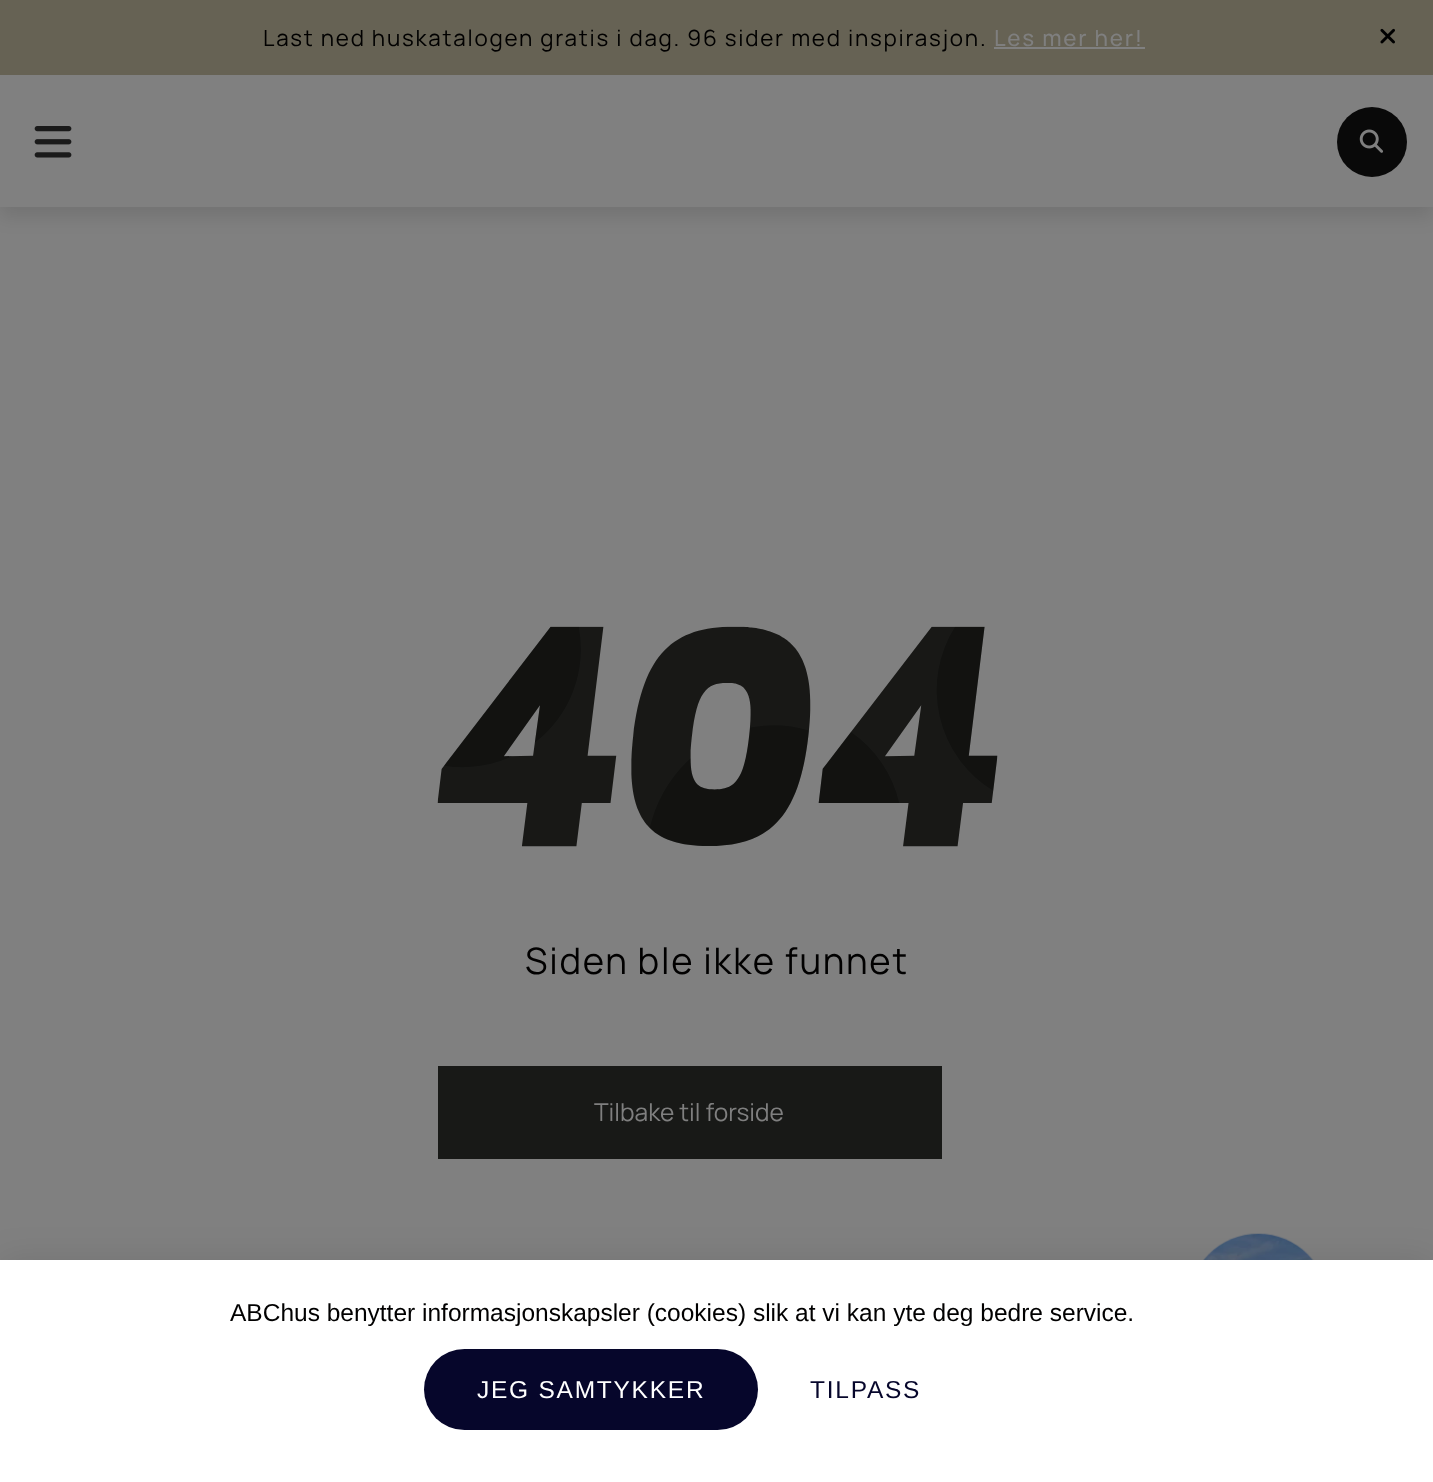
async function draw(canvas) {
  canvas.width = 1433;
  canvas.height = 1482;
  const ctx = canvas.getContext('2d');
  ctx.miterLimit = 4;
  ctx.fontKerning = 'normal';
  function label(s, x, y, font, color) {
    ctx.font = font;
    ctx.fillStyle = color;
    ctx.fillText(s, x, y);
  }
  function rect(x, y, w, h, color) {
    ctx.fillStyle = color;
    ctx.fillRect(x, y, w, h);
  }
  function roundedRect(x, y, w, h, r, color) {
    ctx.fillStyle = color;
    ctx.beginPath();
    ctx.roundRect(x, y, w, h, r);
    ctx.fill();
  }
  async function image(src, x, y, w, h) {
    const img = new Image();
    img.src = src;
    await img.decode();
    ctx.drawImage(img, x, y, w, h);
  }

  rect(0, 0, 1433, 1482, '#808080');
  ctx.fillStyle = '#0000001a';
  ctx.filter = 'blur(9px)';
  ctx.beginPath();
  ctx.rect(0, 11, 1433, 206);
  ctx.fill();
  ctx.filter = 'none';
  rect(0, 75, 1433, 132, '#808080');
  rect(0, 0, 1433, 75, '#666254');
  ctx.letterSpacing = '1.75px';
  label('Last ned huskatalogen gratis i dag. 96 sider med inspirasjon.', 263, 46, '22.4px Manrope', '#010000');
  label('Les mer her!', 994, 46, '500 22.4px Manrope', '#7f7f7f');
  rect(994, 47, 151, 2, '#808080');
  await image('assets/img1.png', 1380, 28, 15, 16);
  await image('assets/img2.png', 34, 126, 38, 32);
  ctx.fillStyle = '#090909';
  ctx.beginPath();
  ctx.arc(1372, 142, 35, 0, 2 * Math.PI);
  ctx.fill();
  await image('assets/img3.png', 1359, 129, 25, 24);
  await image('assets/img4.png', 437, 626, 561, 221);
  label('Siden ble ikke funnet', 525, 974, '36.4px Manrope', '#010000');
  rect(438, 1066, 504, 93, '#181917');
  ctx.letterSpacing = '0px';
  label('Tilbake til forside', 594, 1121, '24.5px Manrope', '#7f7f7f');
  await image('assets/img5.png', 1203, 1233, 111, 27);
  ctx.fillStyle = '#0000001a';
  ctx.filter = 'blur(17.5px)';
  ctx.beginPath();
  ctx.rect(0, 1260, 1433, 222);
  ctx.fill();
  ctx.filter = 'none';
  rect(0, 1260, 1433, 222, '#fff');
  label('ABChus benytter informasjonskapsler (cookies) slik at vi kan yte deg bedre service.', 230, 1321, '24.5px Liberation Sans', '#010000');
  roundedRect(424, 1349, 334, 81, 40.5, '#06062b');
  ctx.letterSpacing = '1.75px';
  label('JEG SAMTYKKER', 477, 1398, '24.5px Liberation Sans', '#fff');
  label('TILPASS', 810, 1398, '24.5px Liberation Sans', '#06062b');
}

draw(document.querySelector('canvas'));
